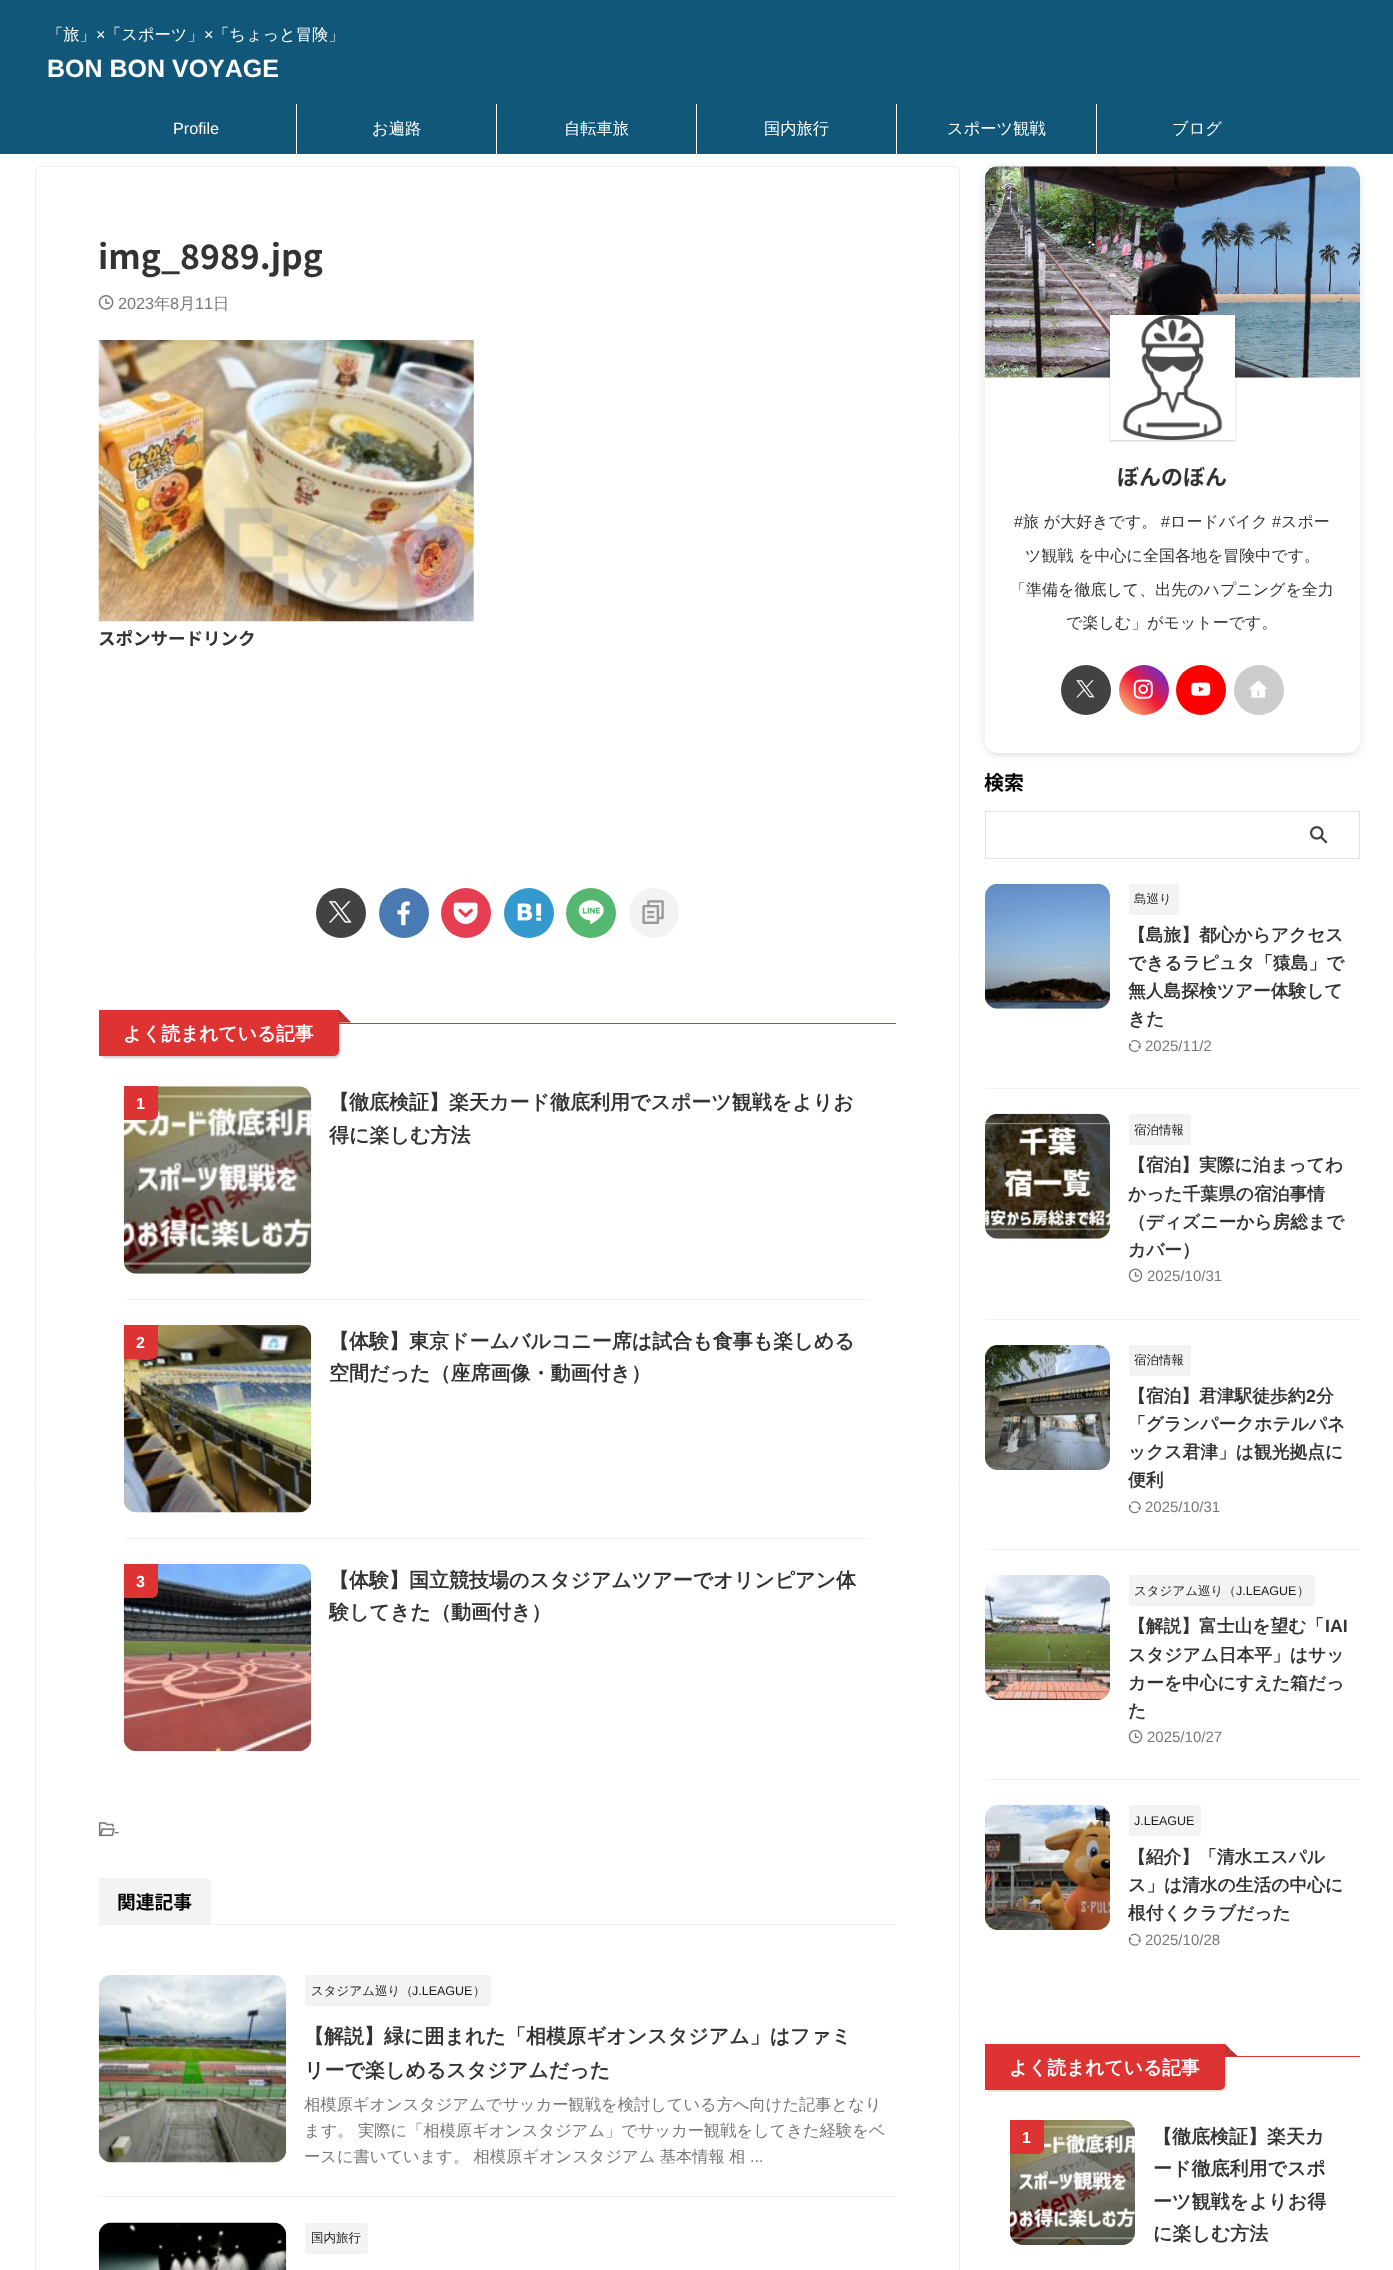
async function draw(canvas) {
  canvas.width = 1393;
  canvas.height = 2270;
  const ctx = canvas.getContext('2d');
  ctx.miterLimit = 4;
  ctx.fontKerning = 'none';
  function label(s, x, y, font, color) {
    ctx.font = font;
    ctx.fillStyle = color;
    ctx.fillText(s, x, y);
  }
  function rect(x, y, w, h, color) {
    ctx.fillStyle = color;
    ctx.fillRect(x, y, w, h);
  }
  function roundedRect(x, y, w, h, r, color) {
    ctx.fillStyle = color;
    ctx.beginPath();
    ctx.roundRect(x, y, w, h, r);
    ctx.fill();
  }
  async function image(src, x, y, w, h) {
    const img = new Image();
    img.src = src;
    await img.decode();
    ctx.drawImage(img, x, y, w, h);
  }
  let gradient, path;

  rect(0, 0, 1393, 2270, '#fff');
  rect(0, 0, 1393, 154, '#105779');
  label('「旅」', 47, 40, '500 16.25px WenQuanYi Zen Hei', '#fff');
  label('×', 96, 40, '16.25px Liberation Sans', '#fff');
  label('「スポーツ」', 105, 40, '500 16.25px WenQuanYi Zen Hei', '#fff');
  label('×', 204, 40, '16.25px Liberation Sans', '#fff');
  label('「ちょっと冒険」', 213, 40, '500 16.25px WenQuanYi Zen Hei', '#fff');
  label('BON BON VOYAGE', 47, 77, 'bold 25px Liberation Sans', '#fff');
  rect(296, 104, 1, 50, '#fff');
  label('Profile', 173, 134, '16.25px Liberation Sans', '#fff');
  rect(496, 104, 1, 50, '#fff');
  label('お遍路', 372, 134, '500 16.25px WenQuanYi Zen Hei', '#fff');
  rect(696, 104, 1, 50, '#fff');
  label('自転車旅', 564, 134, '500 16.25px WenQuanYi Zen Hei', '#fff');
  rect(896, 104, 1, 50, '#fff');
  label('国内旅行', 764, 134, '500 16.25px WenQuanYi Zen Hei', '#fff');
  rect(1096, 104, 1, 50, '#fff');
  label('スポーツ観戦', 947, 134, '500 16.25px WenQuanYi Zen Hei', '#fff');
  label('ブログ', 1172, 134, '500 16.25px WenQuanYi Zen Hei', '#fff');
  ctx.beginPath();
  ctx.roundRect(35.5, 166.5, 924, 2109, 4.5);
  ctx.strokeStyle = '#eee';
  ctx.stroke();
  label('img_8989.jpg', 98, 269, 'bold 33.75px Noto Sans JP', '#333');
  await image('assets/img1.png', 98, 295, 16, 15);
  label('2023', 118, 309, '16.25px Liberation Sans', '#777');
  label('年', 154, 309, '500 16.25px WenQuanYi Zen Hei', '#777');
  label('8', 170, 309, '16.25px Liberation Sans', '#777');
  label('月', 179, 309, '500 16.25px WenQuanYi Zen Hei', '#777');
  label('11', 195, 309, '16.25px Liberation Sans', '#777');
  label('日', 213, 309, '500 16.25px WenQuanYi Zen Hei', '#777');
  await image('assets/img2.png', 98, 340, 376, 282);
  label('スポンサードリンク', 98, 645, 'bold 17.5px Noto Sans JP', '#333');
  ctx.fillStyle = '#424242';
  ctx.beginPath();
  ctx.arc(341, 913, 25, 0, 2 * Math.PI);
  ctx.fill();
  await image('assets/img3.png', 328, 901, 24, 22);
  ctx.fillStyle = '#4a7ab4';
  ctx.beginPath();
  ctx.arc(404, 913, 25, 0, 2 * Math.PI);
  ctx.fill();
  await image('assets/img4.png', 397, 901, 13, 25);
  ctx.fillStyle = '#e53e53';
  ctx.beginPath();
  ctx.arc(466, 913, 25, 0, 2 * Math.PI);
  ctx.fill();
  await image('assets/img5.png', 453, 902, 25, 22);
  ctx.fillStyle = '#349ace';
  ctx.beginPath();
  ctx.arc(529, 913, 25, 0, 2 * Math.PI);
  ctx.fill();
  await image('assets/img6.png', 517, 903, 25, 18);
  ctx.fillStyle = '#56b870';
  ctx.beginPath();
  ctx.arc(591, 913, 25, 0, 2 * Math.PI);
  ctx.fill();
  await image('assets/img7.png', 578, 900, 26, 24);
  ctx.fillStyle = '#f3f3f3';
  ctx.beginPath();
  ctx.arc(654, 913, 25, 0, 2 * Math.PI);
  ctx.fill();
  await image('assets/img8.png', 642, 900, 22, 24);
  rect(339, 1023, 557, 1, '#d33');
  ctx.fillStyle = '#00000033';
  ctx.filter = 'blur(1px)';
  ctx.beginPath();
  ctx.roundRect(100, 1011, 240, 47, 5);
  ctx.fill();
  ctx.filter = 'none';
  ctx.fillStyle = '#d33';
  ctx.beginPath();
  ctx.roundRect(99, 1010, 240, 46, [0, 0, 5, 0]);
  ctx.fill();
  path = new Path2D('M351 1022.5H339L345 1016Z');
  ctx.fill(path);
  path = new Path2D('M339 1022.5V1010L345 1016Z');
  ctx.fill(path);
  ctx.fillStyle = '#33333333';
  path = new Path2D('M351 1022.5H339L345 1016Z');
  ctx.fill(path);
  path = new Path2D('M339 1022.5V1010L345 1016Z');
  ctx.fill(path);
  label('よく読まれている記事', 123, 1040, 'bold 18.75px WenQuanYi Zen Hei', '#fff');
  rect(124, 1299, 747, 1, '#f3f3f3');
  await image('assets/img9.png', 123, 1086, 189, 188);
  ctx.fillStyle = '#d33';
  ctx.beginPath();
  ctx.roundRect(124, 1086, 34, 34, [0, 0, 6, 0]);
  ctx.fill();
  label('1', 136, 1109, 'bold 16px Liberation Sans', '#fff');
  label('【徹底検証】楽天カード徹底利用でスポーツ観戦をよりお', 329, 1109, 'bold 20px WenQuanYi Zen Hei', '#333');
  label('得に楽しむ方法', 329, 1142, 'bold 20px WenQuanYi Zen Hei', '#333');
  rect(124, 1538, 747, 1, '#f3f3f3');
  await image('assets/img10.png', 123, 1325, 189, 188);
  ctx.fillStyle = '#d33';
  ctx.beginPath();
  ctx.roundRect(124, 1325, 34, 34, [0, 0, 6, 0]);
  ctx.fill();
  label('2', 136, 1348, 'bold 16px Liberation Sans', '#fff');
  label('【体験】東京ドームバルコニー席は試合も食事も楽しめる', 329, 1348, 'bold 20px WenQuanYi Zen Hei', '#333');
  label('空間だった（座席画像・動画付き）', 329, 1380, 'bold 20px WenQuanYi Zen Hei', '#333');
  await image('assets/img11.png', 123, 1563, 189, 189);
  ctx.fillStyle = '#d33';
  ctx.beginPath();
  ctx.roundRect(124, 1564, 34, 34, [0, 0, 6, 0]);
  ctx.fill();
  label('3', 136, 1587, 'bold 16px Liberation Sans', '#fff');
  label('【体験】国立競技場のスタジアムツアーでオリンピアン体', 329, 1587, 'bold 20px WenQuanYi Zen Hei', '#333');
  label('験してきた（動画付き）', 329, 1619, 'bold 20px WenQuanYi Zen Hei', '#333');
  await image('assets/img12.png', 98, 1822, 17, 15);
  label('-', 114, 1837, '16.25px Liberation Sans', '#777');
  rect(99, 1924, 797, 1, '#f3f3f3');
  ctx.beginPath();
  ctx.roundRect(99, 1878, 112, 46, [0, 6, 0, 0]);
  ctx.fill();
  label('関連記事', 117, 1909, 'bold 18.75px Noto Sans JP', '#000');
  rect(99, 2196, 797, 1, '#f3f3f3');
  await image('assets/img13.png', 98, 1975, 189, 188);
  roundedRect(305, 1975, 186, 31, 2.5, '#f3f3f3');
  label('スタジアム巡り（', 311, 1995, '500 12.5px WenQuanYi Zen Hei', '#1a1a1a');
  label('J.LEAGUE', 412, 1995, '12.5px Liberation Sans', '#1a1a1a');
  label('）', 473, 1995, '500 12.5px WenQuanYi Zen Hei', '#1a1a1a');
  label('【解説】緑に囲まれた「相模原ギオンスタジアム」はファミ', 304, 2043, 'bold 20px WenQuanYi Zen Hei', '#333');
  label('リーで楽しめるスタジアムだった', 304, 2077, 'bold 20px WenQuanYi Zen Hei', '#333');
  label('相模原ギオンスタジアムでサッカー観戦を検討している方へ向けた記事となり', 304, 2110, '500 16.25px WenQuanYi Zen Hei', '#777');
  ctx.wordSpacing = '-0.5px';
  label('ます。 実際に「相模原ギオンスタジアム」でサッカー観戦をしてきた経験をベ', 304, 2136, '500 16.25px WenQuanYi Zen Hei', '#777');
  label('ースに書いています。 相模原ギオンスタジアム 基本情報 相', 304, 2162, '500 16.25px WenQuanYi Zen Hei', '#777');
  ctx.wordSpacing = '0px';
  label('...', 750, 2162, '16.25px Liberation Sans', '#777');
  await image('assets/img14.png', 98, 2222, 189, 48);
  roundedRect(305, 2223, 63, 31, 2.5, '#f3f3f3');
  label('国内旅行', 311, 2242, '500 12.5px WenQuanYi Zen Hei', '#1a1a1a');
  ctx.fillStyle = '#0000001a';
  ctx.filter = 'blur(2.5px)';
  ctx.beginPath();
  ctx.roundRect(990, 176, 365, 577, 8);
  ctx.fill();
  ctx.filter = 'none';
  ctx.filter = 'blur(5px)';
  ctx.beginPath();
  ctx.roundRect(985, 168, 375, 586, 13);
  ctx.fill();
  ctx.filter = 'none';
  roundedRect(985, 166, 375, 587, 13, '#fff');
  await image('assets/img15.png', 985, 166, 375, 212);
  ctx.fillStyle = '#00000033';
  ctx.filter = 'blur(1px)';
  ctx.beginPath();
  ctx.rect(1110, 316, 125, 125);
  ctx.fill();
  ctx.filter = 'none';
  await image('assets/img16.png', 1110, 315, 125, 125);
  label('ぼんのぼん', 1117, 485, 'bold 22px Noto Sans JP', '#333');
  label('#', 1014, 527, '16px Liberation Sans', '#333');
  label('旅 が大好きです。', 1023, 527, '500 16px WenQuanYi Zen Hei', '#333');
  label('#', 1161, 527, '16px Liberation Sans', '#333');
  label('ロードバイク', 1170, 527, '500 16px WenQuanYi Zen Hei', '#333');
  label('#', 1272, 527, '16px Liberation Sans', '#333');
  label('スポー', 1281, 527, '500 16px WenQuanYi Zen Hei', '#333');
  label('ツ観戦 を中心に全国各地を冒険中です。', 1025, 561, '500 16px WenQuanYi Zen Hei', '#333');
  label('「準備を徹底して、出先のハプニングを全力', 1010, 595, '500 16px WenQuanYi Zen Hei', '#333');
  label('で楽しむ」がモットーです。', 1066, 628, '500 16px WenQuanYi Zen Hei', '#333');
  ctx.fillStyle = '#424242';
  ctx.beginPath();
  ctx.arc(1086, 690, 25, 0, 2 * Math.PI);
  ctx.fill();
  await image('assets/img17.png', 1076, 680, 19, 18);
  gradient = ctx.createLinearGradient(1169, 665, 1119, 715);
  gradient.addColorStop(0, '#4933f7');
  gradient.addColorStop(0.5, '#ef1837');
  gradient.addColorStop(1, '#fbd980');
  ctx.fillStyle = gradient;
  ctx.beginPath();
  ctx.arc(1144, 690, 25, 0, 2 * Math.PI);
  ctx.fill();
  await image('assets/img18.png', 1133, 679, 20, 20);
  ctx.fillStyle = '#f00';
  ctx.beginPath();
  ctx.arc(1201, 690, 25, 0, 2 * Math.PI);
  ctx.fill();
  await image('assets/img19.png', 1191, 682, 20, 14);
  ctx.fillStyle = '#ccc';
  ctx.beginPath();
  ctx.arc(1259, 690, 25, 0, 2 * Math.PI);
  ctx.fill();
  await image('assets/img20.png', 1249, 680, 19, 18);
  label('検索', 984, 790, 'bold 20px Noto Sans JP', '#000');
  ctx.strokeStyle = '#e0e0e0';
  ctx.strokeRect(985.5, 811.5, 374, 47);
  await image('assets/img21.png', 1310, 826, 18, 18);
  rect(985, 1088, 375, 1, '#f3f3f3');
  await image('assets/img22.png', 985, 883, 125, 126);
  roundedRect(1129, 884, 50, 31, 2.5, '#f3f3f3');
  label('島巡り', 1134, 903, '500 12.5px WenQuanYi Zen Hei', '#1a1a1a');
  label('【島旅】都心からアクセス', 1128, 941, 'bold 17.75px WenQuanYi Zen Hei', '#333');
  label('できるラピュタ「猿島」で', 1128, 969, 'bold 17.75px WenQuanYi Zen Hei', '#333');
  label('無人島探検ツアー体験して', 1128, 997, 'bold 17.75px WenQuanYi Zen Hei', '#333');
  label('きた', 1128, 1025, 'bold 17.75px WenQuanYi Zen Hei', '#333');
  await image('assets/img23.png', 1128, 1040, 13, 12);
  label('2025/11/2', 1145, 1051, '15px Liberation Sans', '#777');
  rect(985, 1319, 375, 1, '#f3f3f3');
  await image('assets/img24.png', 985, 1113, 125, 126);
  roundedRect(1129, 1114, 62, 31, 2.5, '#f3f3f3');
  label('宿泊情報', 1134, 1134, '500 12.5px WenQuanYi Zen Hei', '#1a1a1a');
  label('【宿泊】実際に泊まってわ', 1128, 1171, 'bold 17.75px WenQuanYi Zen Hei', '#333');
  label('かった千葉県の宿泊事情', 1128, 1200, 'bold 17.75px WenQuanYi Zen Hei', '#333');
  label('（ディズニーから房総まで', 1128, 1228, 'bold 17.75px WenQuanYi Zen Hei', '#333');
  label('カバー）', 1128, 1256, 'bold 17.75px WenQuanYi Zen Hei', '#333');
  await image('assets/img25.png', 1128, 1268, 15, 15);
  label('2025/10/31', 1147, 1281, '15px Liberation Sans', '#777');
  rect(985, 1549, 375, 1, '#f3f3f3');
  await image('assets/img26.png', 985, 1345, 125, 125);
  roundedRect(1129, 1345, 62, 31, 2.5, '#f3f3f3');
  label('宿泊情報', 1134, 1364, '500 12.5px WenQuanYi Zen Hei', '#1a1a1a');
  label('【宿泊】君津駅徒歩約', 1128, 1402, 'bold 17.75px WenQuanYi Zen Hei', '#333');
  label('2', 1306, 1402, 'bold 17.75px Liberation Sans', '#333');
  label('分', 1316, 1402, 'bold 17.75px WenQuanYi Zen Hei', '#333');
  label('「グランパークホテルパネ', 1128, 1430, 'bold 17.75px WenQuanYi Zen Hei', '#333');
  label('ックス君津」は観光拠点に', 1128, 1458, 'bold 17.75px WenQuanYi Zen Hei', '#333');
  label('便利', 1128, 1486, 'bold 17.75px WenQuanYi Zen Hei', '#333');
  await image('assets/img27.png', 1128, 1501, 13, 13);
  label('2025/10/31', 1145, 1512, '15px Liberation Sans', '#777');
  rect(985, 1779, 375, 1, '#f3f3f3');
  await image('assets/img28.png', 985, 1575, 125, 125);
  roundedRect(1129, 1575, 186, 31, 2.5, '#f3f3f3');
  label('スタジアム巡り（', 1134, 1595, '500 12.5px WenQuanYi Zen Hei', '#1a1a1a');
  label('J.LEAGUE', 1236, 1595, '12.5px Liberation Sans', '#1a1a1a');
  label('）', 1297, 1595, '500 12.5px WenQuanYi Zen Hei', '#1a1a1a');
  label('【解説】富士山を望む「', 1128, 1632, 'bold 17.75px WenQuanYi Zen Hei', '#333');
  label('IAI', 1325, 1632, 'bold 17.75px Liberation Sans', '#333');
  label('スタジアム日本平」はサッ', 1128, 1661, 'bold 17.75px WenQuanYi Zen Hei', '#333');
  label('カーを中心にすえた箱だっ', 1128, 1689, 'bold 17.75px WenQuanYi Zen Hei', '#333');
  label('た', 1128, 1717, 'bold 17.75px WenQuanYi Zen Hei', '#333');
  await image('assets/img29.png', 1128, 1729, 15, 15);
  label('2025/10/27', 1147, 1742, '15px Liberation Sans', '#777');
  await image('assets/img30.png', 985, 1805, 125, 125);
  roundedRect(1129, 1805, 72, 31, 2.5, '#f3f3f3');
  label('J.LEAGUE', 1134, 1825, '12.5px Liberation Sans', '#1a1a1a');
  label('【紹介】「清水エスパル', 1128, 1863, 'bold 17.75px WenQuanYi Zen Hei', '#333');
  label('ス」は清水の生活の中心に', 1128, 1891, 'bold 17.75px WenQuanYi Zen Hei', '#333');
  label('根付くクラブだった', 1128, 1919, 'bold 17.75px WenQuanYi Zen Hei', '#333');
  await image('assets/img31.png', 1128, 1933, 13, 13);
  label('2025/10/28', 1145, 1945, '15px Liberation Sans', '#777');
  rect(1225, 2056, 135, 1, '#d33');
  ctx.fillStyle = '#00000033';
  ctx.filter = 'blur(1px)';
  ctx.beginPath();
  ctx.roundRect(986, 2045, 240, 46, 5);
  ctx.fill();
  ctx.filter = 'none';
  ctx.fillStyle = '#d33';
  ctx.beginPath();
  ctx.roundRect(985, 2044, 240, 46, [0, 0, 5, 0]);
  ctx.fill();
  path = new Path2D('M1237.5 2056H1225L1231 2050Z');
  ctx.fill(path);
  path = new Path2D('M1225 2056V2044L1231 2050Z');
  ctx.fill(path);
  ctx.fillStyle = '#33333333';
  path = new Path2D('M1237.5 2056H1225L1231 2050Z');
  ctx.fill(path);
  path = new Path2D('M1225 2056V2044L1231 2050Z');
  ctx.fill(path);
  label('よく読まれている記事', 1009, 2074, 'bold 18.75px WenQuanYi Zen Hei', '#fff');
  await image('assets/img32.png', 1010, 2120, 125, 125);
  ctx.fillStyle = '#d33';
  ctx.beginPath();
  ctx.roundRect(1010, 2120, 34, 34, [0, 0, 6, 0]);
  ctx.fill();
  label('1', 1022, 2143, 'bold 16px Liberation Sans', '#fff');
  label('【徹底検証】楽天カ', 1153, 2143, 'bold 19px WenQuanYi Zen Hei', '#333');
  label('ード徹底利用でスポ', 1153, 2175, 'bold 19px WenQuanYi Zen Hei', '#333');
  label('ーツ観戦をよりお得', 1153, 2208, 'bold 19px WenQuanYi Zen Hei', '#333');
  label('に楽しむ方法', 1153, 2240, 'bold 19px WenQuanYi Zen Hei', '#333');
}

draw(document.querySelector('canvas'));
